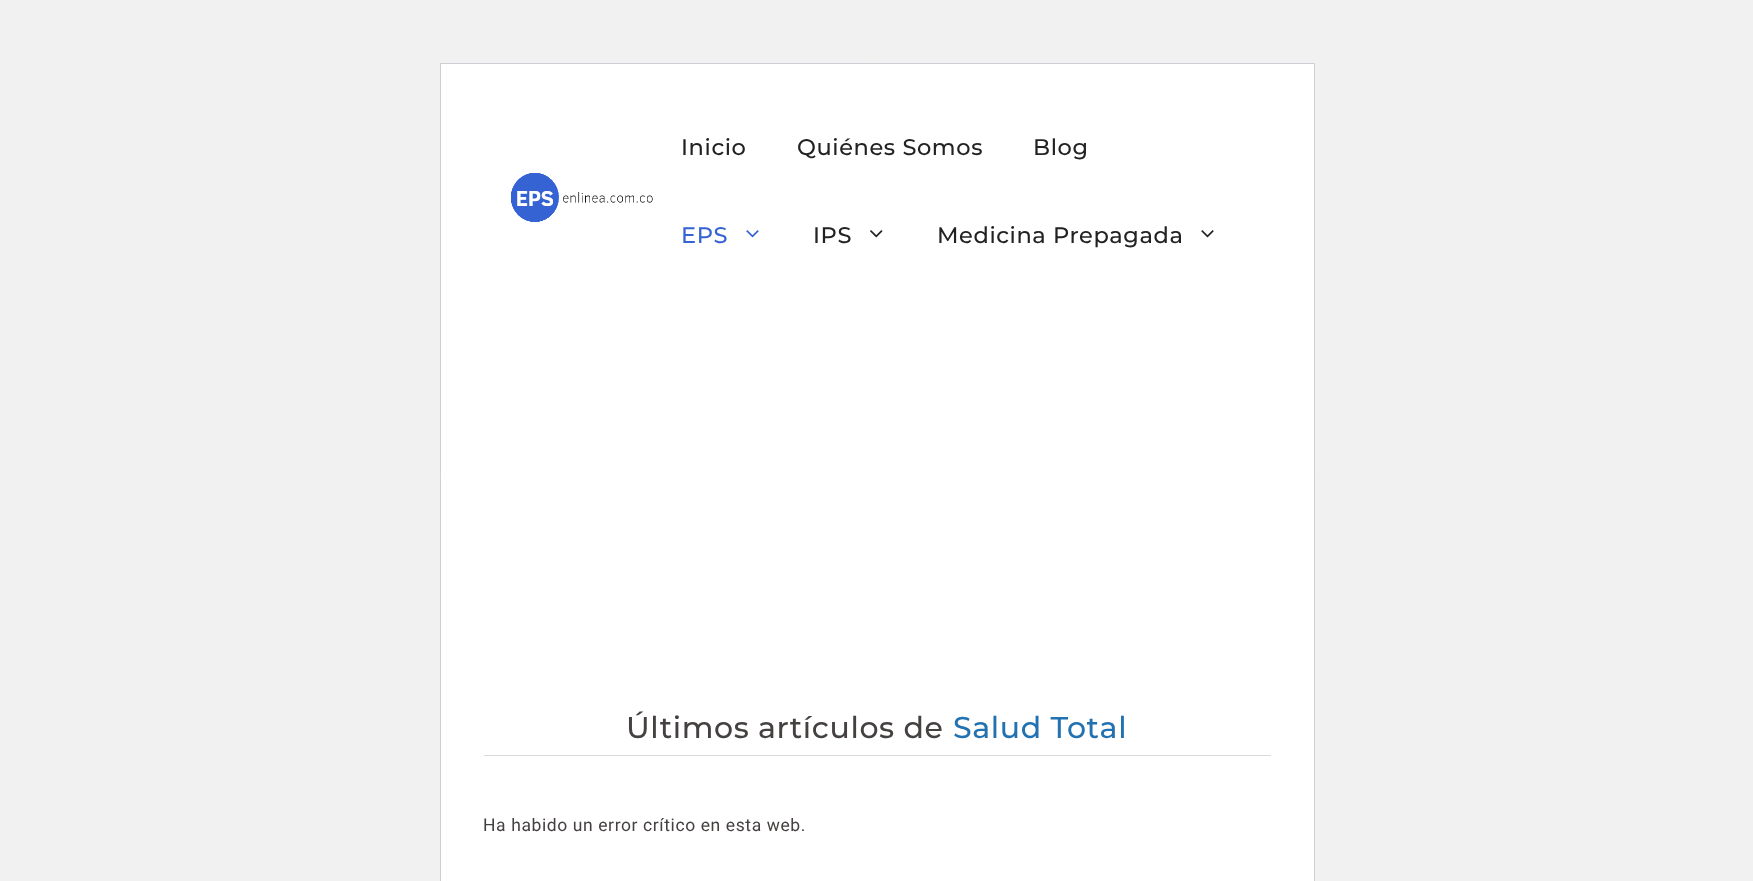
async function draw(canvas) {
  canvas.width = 1753;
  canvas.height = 881;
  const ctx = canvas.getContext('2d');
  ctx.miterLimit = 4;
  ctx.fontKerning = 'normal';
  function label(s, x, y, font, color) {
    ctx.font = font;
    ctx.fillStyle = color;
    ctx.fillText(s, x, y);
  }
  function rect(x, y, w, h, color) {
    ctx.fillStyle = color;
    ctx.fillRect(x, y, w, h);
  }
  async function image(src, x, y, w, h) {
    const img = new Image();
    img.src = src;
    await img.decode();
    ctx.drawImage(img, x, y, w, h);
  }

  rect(0, 0, 1753, 881, '#f1f1f1');
  ctx.fillStyle = '#fff';
  ctx.beginPath();
  ctx.rect(440.5, 63.5, 874, 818);
  ctx.fill();
  ctx.strokeStyle = '#ccd0d4';
  ctx.stroke();
  await image('assets/img1.png', 511, 173, 142, 49);
  ctx.letterSpacing = '0.6px';
  label('Inicio', 681, 155, '500 22.5px Montserrat', '#222');
  label('Quiénes Somos', 797, 155, '500 22.5px Montserrat', '#222');
  label('Blog', 1033, 155, '500 22.5px Montserrat', '#222');
  label('EPS', 681, 243, '500 22.5px Montserrat', '#3563d3');
  await image('assets/img2.png', 746, 230, 13, 8);
  label('IPS', 813, 243, '500 22.5px Montserrat', '#222');
  await image('assets/img3.png', 870, 230, 13, 8);
  label('Medicina Prepagada', 937, 243, '500 22.5px Montserrat', '#222');
  await image('assets/img4.png', 1201, 230, 13, 8);
  rect(484, 755, 787, 1, '#dadada');
  label('Últimos artículos de', 626, 738, '500 30px Montserrat', '#464141');
  label('Salud Total', 953, 738, '500 30px Montserrat', '#2271b1');
  label('Ha habido un error crítico en esta web.', 483, 831, '17.5px Roboto', '#464141');
}

draw(document.querySelector('canvas'));
